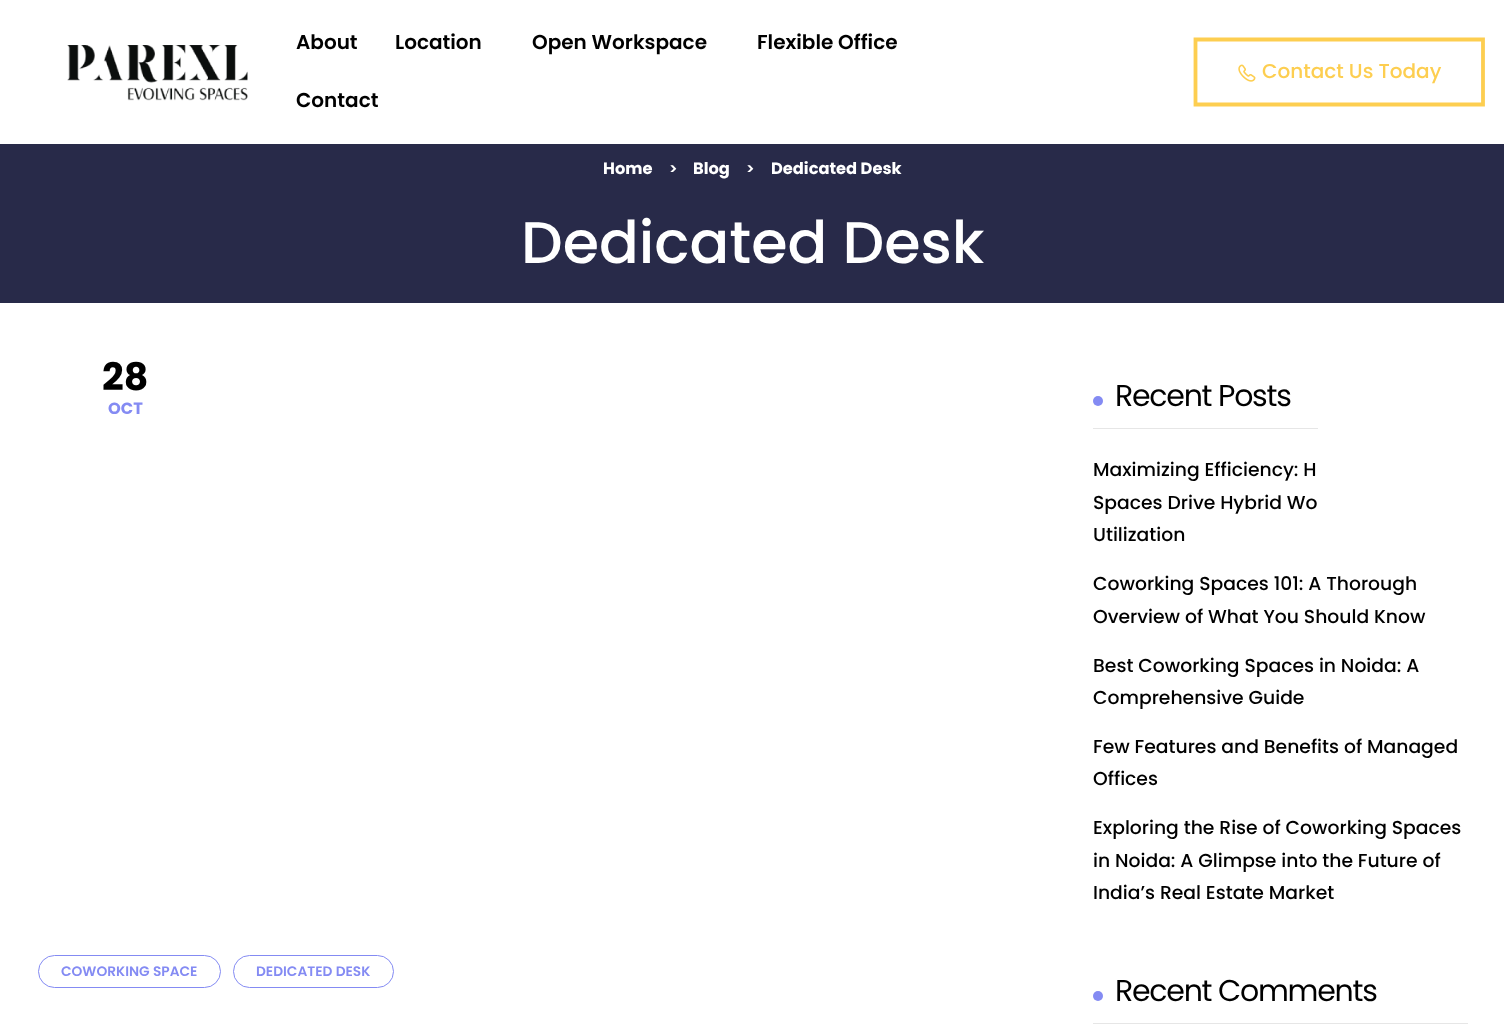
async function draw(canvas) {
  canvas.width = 1504;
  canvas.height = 1024;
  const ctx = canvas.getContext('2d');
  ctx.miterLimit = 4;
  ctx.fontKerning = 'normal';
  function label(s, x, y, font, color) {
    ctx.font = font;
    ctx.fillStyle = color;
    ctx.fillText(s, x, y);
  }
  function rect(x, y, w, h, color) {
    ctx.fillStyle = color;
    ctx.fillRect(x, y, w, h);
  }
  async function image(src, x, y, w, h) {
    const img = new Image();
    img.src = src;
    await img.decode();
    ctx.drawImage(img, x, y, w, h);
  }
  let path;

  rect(0, 0, 1504, 1024, '#fff');
  await image('assets/img1.png', 67, 45, 181, 56);
  label('About', 296, 49, '600 20px Poppins', '#000');
  label('Location', 395, 49, '600 20px Poppins', '#000');
  label('Open Workspace', 532, 49, '600 20px Poppins', '#000');
  label('Flexible Office', 757, 49, '600 20px Poppins', '#000');
  label('Contact', 296, 107, '600 20px Poppins', '#000');
  path = new Path2D('M1195.5 39.5H1483V104.5H1195.5Z');
  ctx.strokeStyle = '#fdce50';
  ctx.lineWidth = 3.8;
  ctx.stroke(path);
  await image('assets/img2.png', 1238, 64, 18, 18);
  label('Contact Us Today', 1262, 78, '500 20px Poppins', '#fdce50');
  rect(0, 144, 1504, 159, '#282a49');
  label('Home', 603, 174, 'bold 16.25px Poppins', '#fff');
  label('>', 669, 174, '600 15px Poppins', '#fff');
  label('Blog', 693, 174, 'bold 16.25px Poppins', '#fff');
  label('>', 746, 174, '600 15px Poppins', '#fff');
  label('Dedicated Desk', 771, 174, 'bold 16.25px Poppins', '#fff');
  label('Dedicated Desk', 521, 263, '500 58.75px Poppins', '#fff');
  label('28', 102, 390, 'bold 38px Poppins', '#000');
  label('OCT', 108, 414, 'bold 16.25px Poppins', '#848bf3');
  ctx.beginPath();
  ctx.roundRect(38.5, 955.5, 182, 32, 16);
  ctx.strokeStyle = '#848bf3';
  ctx.lineWidth = 1;
  ctx.stroke();
  label('COWORKING SPACE', 61, 976, '600 13.75px Poppins', '#848bf3');
  ctx.beginPath();
  ctx.roundRect(233.5, 955.5, 160, 32, 16);
  ctx.stroke();
  label('DEDICATED DESK', 256, 976, '600 13.75px Poppins', '#848bf3');
  rect(1093, 428, 225, 1, '#e6e6e6');
  ctx.fillStyle = '#848bf3';
  ctx.beginPath();
  ctx.arc(1098, 401, 5, 0, 2 * Math.PI);
  ctx.fill();
  ctx.letterSpacing = '-1.25px';
  label('Recent Posts', 1115, 406, '30px Poppins', '#000');
  ctx.letterSpacing = '0px';
  label('Maximizing Efficiency: H', 1093, 476, '500 18.75px Poppins', '#000');
  label('Spaces Drive Hybrid Wo', 1093, 509, '500 18.75px Poppins', '#000');
  label('Utilization', 1093, 541, '500 18.75px Poppins', '#000');
  label('Coworking Spaces 101: A Thorough', 1093, 590, '500 18.75px Poppins', '#000');
  label('Overview of What You Should Know', 1093, 623, '500 18.75px Poppins', '#000');
  label('Best Coworking Spaces in Noida: A', 1093, 672, '500 18.75px Poppins', '#000');
  label('Comprehensive Guide', 1093, 704, '500 18.75px Poppins', '#000');
  label('Few Features and Benefits of Managed', 1093, 753, '500 18.75px Poppins', '#000');
  label('Offices', 1093, 785, '500 18.75px Poppins', '#000');
  label('Exploring the Rise of Coworking Spaces', 1093, 834, '500 18.75px Poppins', '#000');
  label('in Noida: A Glimpse into the Future of', 1093, 867, '500 18.75px Poppins', '#000');
  label('India’s Real Estate Market', 1093, 899, '500 18.75px Poppins', '#000');
  rect(1093, 1023, 375, 1, '#e6e6e6');
  ctx.fillStyle = '#848bf3';
  ctx.beginPath();
  ctx.arc(1098, 996, 5, 0, 2 * Math.PI);
  ctx.fill();
  ctx.letterSpacing = '-1.25px';
  label('Recent Comments', 1115, 1001, '30px Poppins', '#000');
}

draw(document.querySelector('canvas'));
